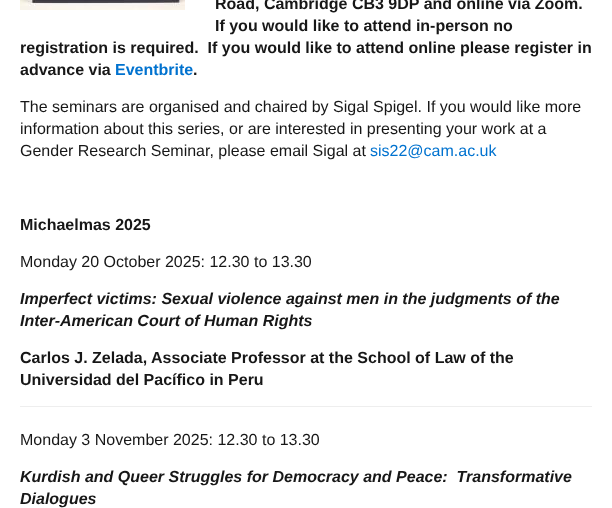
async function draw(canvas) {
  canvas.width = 612;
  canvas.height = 508;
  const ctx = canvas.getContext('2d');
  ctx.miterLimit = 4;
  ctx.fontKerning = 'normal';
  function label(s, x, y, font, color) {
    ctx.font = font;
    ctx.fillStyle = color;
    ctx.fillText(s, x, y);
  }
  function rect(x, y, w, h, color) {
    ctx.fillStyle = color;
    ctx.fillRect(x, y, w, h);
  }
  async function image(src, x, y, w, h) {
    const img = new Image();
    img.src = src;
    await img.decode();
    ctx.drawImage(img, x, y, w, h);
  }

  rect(0, 0, 612, 508, '#fff');
  await image('assets/img1.png', 20, 0, 165, 10);
  label('Road, Cambridge CB3 9DP and online via Zoom.', 215, 9, 'bold 16px Liberation Sans', '#171717');
  label('If you would like to attend in-person no', 215, 31, 'bold 16px Liberation Sans', '#171717');
  label('registration is required.  If you would like to attend online please register in', 20, 53, 'bold 16px Liberation Sans', '#171717');
  label('advance via', 20, 75, 'bold 16px Liberation Sans', '#171717');
  label('Eventbrite', 115, 75, 'bold 16px Liberation Sans', '#0072cf');
  label('.', 193, 75, 'bold 16px Liberation Sans', '#171717');
  label('The seminars are organised and chaired by Sigal Spigel. If you would like more', 20, 112, '16px Liberation Sans', '#171717');
  label('information about this series, or are interested in presenting your work at a', 20, 134, '16px Liberation Sans', '#171717');
  label('Gender Research Seminar, please email Sigal at', 20, 156, '16px Liberation Sans', '#171717');
  label('sis22@cam.ac.uk', 370, 156, '16px Liberation Sans', '#0072cf');
  label('Michaelmas 2025', 20, 230, 'bold 16px Liberation Sans', '#171717');
  label('Monday 20 October 2025: 12.30 to 13.30', 20, 267, '16px Liberation Sans', '#171717');
  label('Imperfect victims: Sexual violence against men in the judgments of the', 20, 304, 'italic bold 16px Liberation Sans', '#171717');
  label('Inter-American Court of Human Rights', 20, 326, 'italic bold 16px Liberation Sans', '#171717');
  label('Carlos J. Zelada, Associate Professor at the School of Law of the', 20, 363, 'bold 16px Liberation Sans', '#171717');
  label('Universidad del Pacífico in Peru', 20, 385, 'bold 16px Liberation Sans', '#171717');
  rect(20, 406, 572, 1, '#eee');
  label('Monday 3 November 2025: 12.30 to 13.30', 20, 445, '16px Liberation Sans', '#171717');
  label('Kurdish and Queer Struggles for Democracy and Peace:  Transformative', 20, 482, 'italic bold 16px Liberation Sans', '#171717');
  label('Dialogues', 20, 504, 'italic bold 16px Liberation Sans', '#171717');
}

draw(document.querySelector('canvas'));
